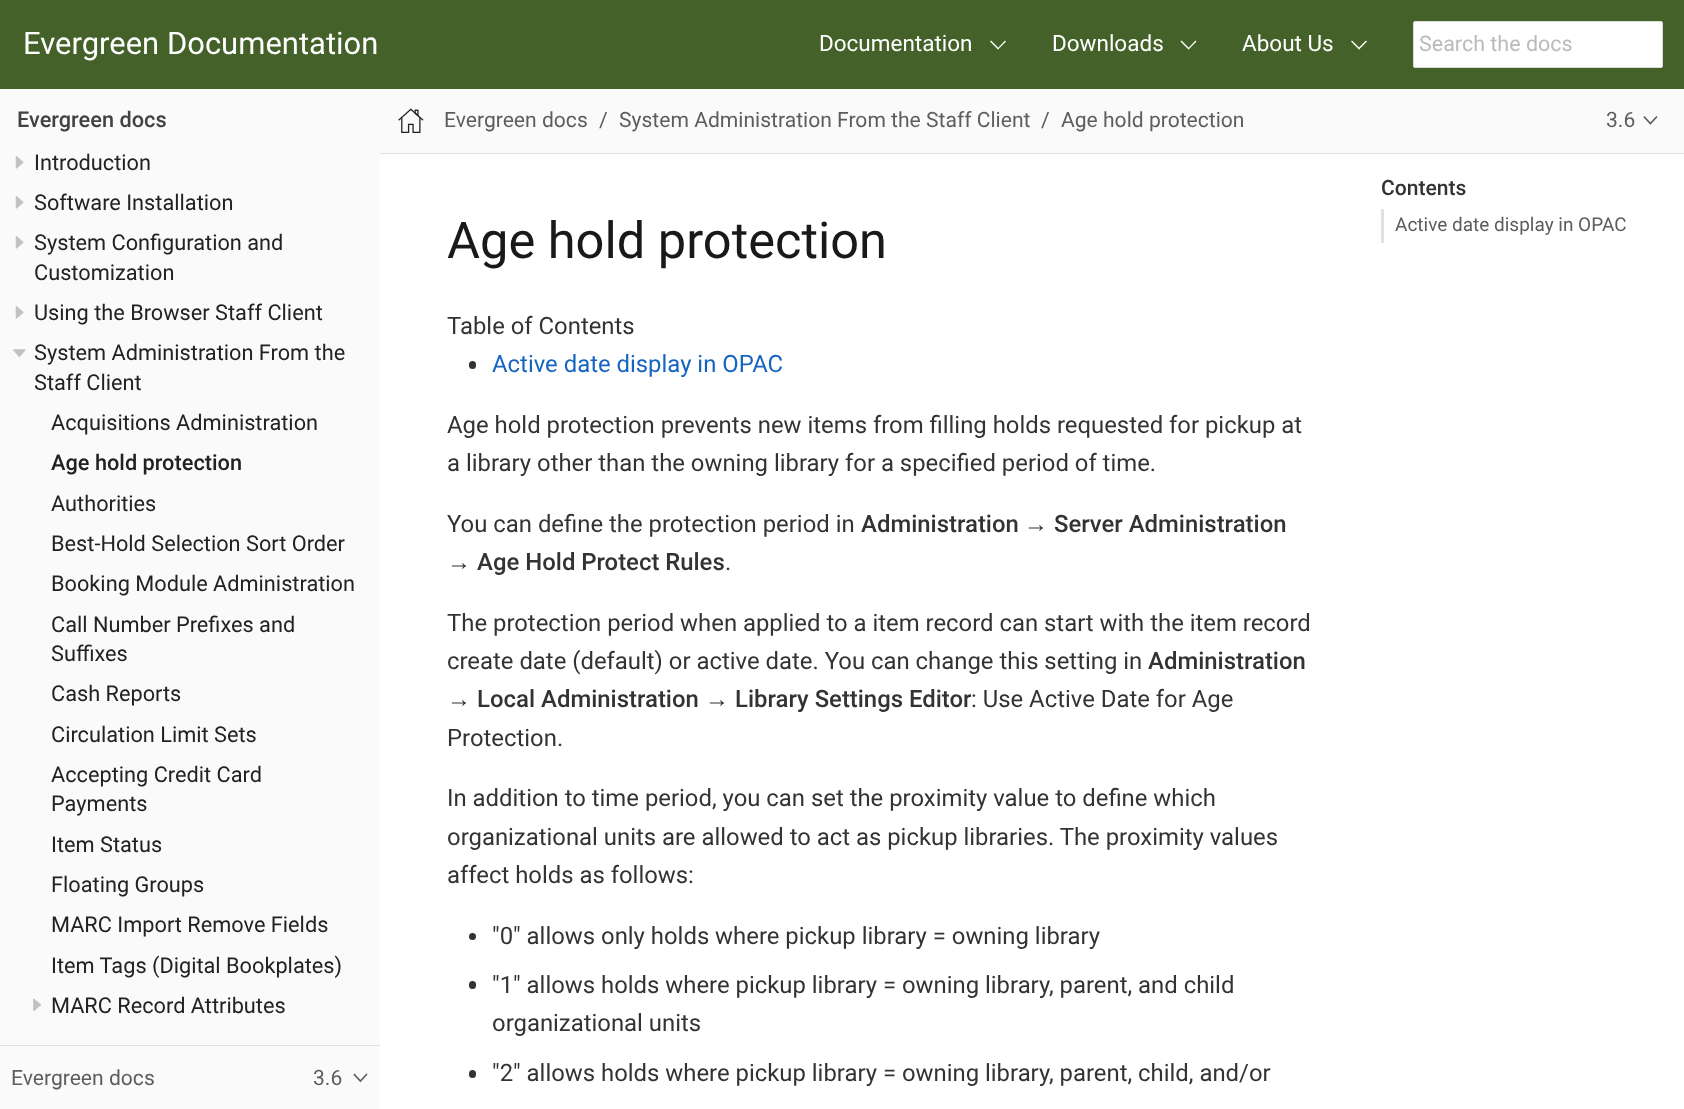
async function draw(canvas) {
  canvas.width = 1684;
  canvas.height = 1109;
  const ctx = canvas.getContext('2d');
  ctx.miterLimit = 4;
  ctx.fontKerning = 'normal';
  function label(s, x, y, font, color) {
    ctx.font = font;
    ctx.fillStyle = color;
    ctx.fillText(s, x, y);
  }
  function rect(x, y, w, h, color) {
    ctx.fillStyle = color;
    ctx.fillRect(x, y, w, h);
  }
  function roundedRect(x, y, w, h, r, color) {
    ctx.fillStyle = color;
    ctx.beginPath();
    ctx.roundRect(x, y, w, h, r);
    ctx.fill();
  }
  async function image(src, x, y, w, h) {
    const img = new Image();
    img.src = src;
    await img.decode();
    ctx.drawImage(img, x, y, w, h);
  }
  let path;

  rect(0, 0, 1684, 1109, '#fff');
  rect(0, 0, 1684, 89, '#446129');
  label('Evergreen Documentation', 23, 54, '31px Roboto', '#fff');
  label('Documentation', 819, 51, '22.5px Roboto', '#fff');
  path = new Path2D('M997.5 48.5L1005 40.5L1006 41.5L998 49.5Z');
  ctx.fill(path);
  path = new Path2D('M990 41.5L991 40.5L999 48.5L998 49.5Z');
  ctx.fill(path);
  label('Downloads', 1052, 51, '22.5px Roboto', '#fff');
  path = new Path2D('M1188 48.5L1195.5 40.5L1196.5 41.5L1188.5 49.5Z');
  ctx.fill(path);
  path = new Path2D('M1180.5 41.5L1181.5 40.5L1189.5 48.5L1188.5 49.5Z');
  ctx.fill(path);
  label('About Us', 1242, 51, '22.5px Roboto', '#fff');
  path = new Path2D('M1358 48.5L1366 40.5L1367 41.5L1359 49.5Z');
  ctx.fill(path);
  path = new Path2D('M1351 41.5L1352 40.5L1360 48.5L1359 49.5Z');
  ctx.fill(path);
  ctx.beginPath();
  ctx.roundRect(1413.5, 21.5, 249, 46, 1.5);
  ctx.fill();
  ctx.strokeStyle = '#dbdbdb';
  ctx.stroke();
  label('Search the docs', 1419, 51, '21.5px Roboto', '#bababa');
  rect(0, 89, 380, 1020, '#fafafa');
  label('Evergreen docs', 17, 127, '500 21.75px Roboto', '#424242');
  await image('assets/img1.png', 15, 156, 9, 13);
  label('Introduction', 34, 170, '21.75px Roboto', '#222');
  await image('assets/img1.png', 15, 196, 9, 13);
  label('Software Installation', 34, 210, '21.75px Roboto', '#222');
  await image('assets/img1.png', 15, 236, 9, 13);
  label('System Configuration and', 34, 250, '21.75px Roboto', '#222');
  label('Customization', 34, 280, '21.75px Roboto', '#222');
  await image('assets/img1.png', 15, 306, 9, 13);
  label('Using the Browser Staff Client', 34, 320, '21.75px Roboto', '#222');
  await image('assets/img2.png', 13, 349, 13, 9);
  label('System Administration From the', 34, 360, '21.75px Roboto', '#222');
  label('Staff Client', 34, 390, '21.75px Roboto', '#222');
  label('Acquisitions Administration', 51, 430, '21.75px Roboto', '#222');
  label('Age hold protection', 51, 470, '500 21.75px Roboto', '#222');
  label('Authorities', 51, 511, '21.75px Roboto', '#222');
  label('Best-Hold Selection Sort Order', 51, 551, '21.75px Roboto', '#222');
  label('Booking Module Administration', 51, 591, '21.75px Roboto', '#222');
  label('Call Number Prefixes and', 51, 632, '21.75px Roboto', '#222');
  label('Suffixes', 51, 661, '21.75px Roboto', '#222');
  label('Cash Reports', 51, 701, '21.75px Roboto', '#222');
  label('Circulation Limit Sets', 51, 742, '21.75px Roboto', '#222');
  label('Accepting Credit Card', 51, 782, '21.75px Roboto', '#222');
  label('Payments', 51, 811, '21.75px Roboto', '#222');
  label('Item Status', 51, 852, '21.75px Roboto', '#222');
  label('Floating Groups', 51, 892, '21.75px Roboto', '#222');
  label('MARC Import Remove Fields', 51, 932, '21.75px Roboto', '#222');
  label('Item Tags (Digital Bookplates)', 51, 973, '21.75px Roboto', '#222');
  await image('assets/img3.png', 33, 998, 8, 14);
  label('MARC Record Attributes', 51, 1013, '21.75px Roboto', '#222');
  rect(0, 1045, 380, 1, '#e1e1e1');
  label('Evergreen docs', 11, 1085, '21.1px Roboto', '#5d5d5d');
  label('3.6', 313, 1085, '21.1px Roboto', '#5d5d5d');
  await image('assets/img4.png', 353, 1073, 15, 10);
  rect(380, 153, 1304, 1, '#e1e1e1');
  rect(380, 89, 1304, 64, '#fafafa');
  await image('assets/img5.png', 398, 108, 26, 25);
  label('Evergreen docs', 444, 127, '21.1px Roboto', '#5d5d5d');
  label('/', 599, 127, '21.1px Roboto', '#5d5d5d');
  label('System Administration From the Staff Client', 619, 127, '21.1px Roboto', '#5d5d5d');
  label('/', 1041, 127, '21.1px Roboto', '#5d5d5d');
  label('Age hold protection', 1061, 127, '21.1px Roboto', '#5d5d5d');
  await image('assets/img6.png', 1643, 116, 15, 9);
  label('3.6', 1606, 127, '21.1px Roboto', '#5d5d5d');
  label('Contents', 1381, 195, '500 21.1px Roboto', '#333');
  rect(1381, 209, 3, 34, '#e1e1e1');
  label('Active date display in OPAC', 1395, 231, '19px Roboto', '#5d5d5d');
  label('Age hold protection', 447, 258, '50.6px Roboto', '#191919');
  label('Table of Contents', 447, 334, '23.9px Roboto', '#333');
  roundedRect(469, 361, 7, 8, 3.5, '#333');
  label('Active date display in OPAC', 492, 372, '23.9px Roboto', '#1565c0');
  label('Age hold protection prevents new items from filling holds requested for pickup at', 447, 433, '23.9px Roboto', '#333');
  label('a library other than the owning library for a specified period of time.', 447, 471, '23.9px Roboto', '#333');
  label('You can define the protection period in', 447, 532, '23.9px Roboto', '#333');
  label('Administration', 861, 532, '500 23.9px Roboto', '#333');
  label('→', 1024, 532, '23.9px Liberation Sans', '#333');
  label('Server Administration', 1054, 532, '500 23.9px Roboto', '#333');
  label('→', 447, 570, '23.9px Liberation Sans', '#333');
  label('Age Hold Protect Rules', 477, 570, '500 23.9px Roboto', '#333');
  label('.', 725, 570, '23.9px Roboto', '#333');
  label('The protection period when applied to a item record can start with the item record', 447, 631, '23.9px Roboto', '#333');
  label('create date (default) or active date. You can change this setting in', 447, 669, '23.9px Roboto', '#333');
  label('Administration', 1148, 669, '500 23.9px Roboto', '#333');
  label('→', 447, 707, '23.9px Liberation Sans', '#333');
  label('Local Administration', 477, 707, '500 23.9px Roboto', '#333');
  label('→', 705, 707, '23.9px Liberation Sans', '#333');
  label('Library Settings Editor', 735, 707, '500 23.9px Roboto', '#333');
  label(': Use Active Date for Age', 971, 707, '23.9px Roboto', '#333');
  label('Protection.', 447, 746, '23.9px Roboto', '#333');
  label('In addition to time period, you can set the proximity value to define which', 447, 806, '23.9px Roboto', '#333');
  label('organizational units are allowed to act as pickup libraries. The proximity values', 447, 845, '23.9px Roboto', '#333');
  label('affect holds as follows:', 447, 883, '23.9px Roboto', '#333');
  ctx.beginPath();
  ctx.arc(472.5, 936.5, 3.5, 0, 2 * Math.PI);
  ctx.fill();
  label('"0" allows only holds where pickup library = owning library', 492, 944, '23.9px Roboto', '#333');
  roundedRect(469, 981, 7, 8, 3.5, '#333');
  label('"1" allows holds where pickup library = owning library, parent, and child', 492, 993, '23.9px Roboto', '#333');
  label('organizational units', 492, 1031, '23.9px Roboto', '#333');
  roundedRect(469, 1070, 7, 8, 3.5, '#333');
  label('"2" allows holds where pickup library = owning library, parent, child, and/or', 492, 1081, '23.9px Roboto', '#333');
}

draw(document.querySelector('canvas'));
